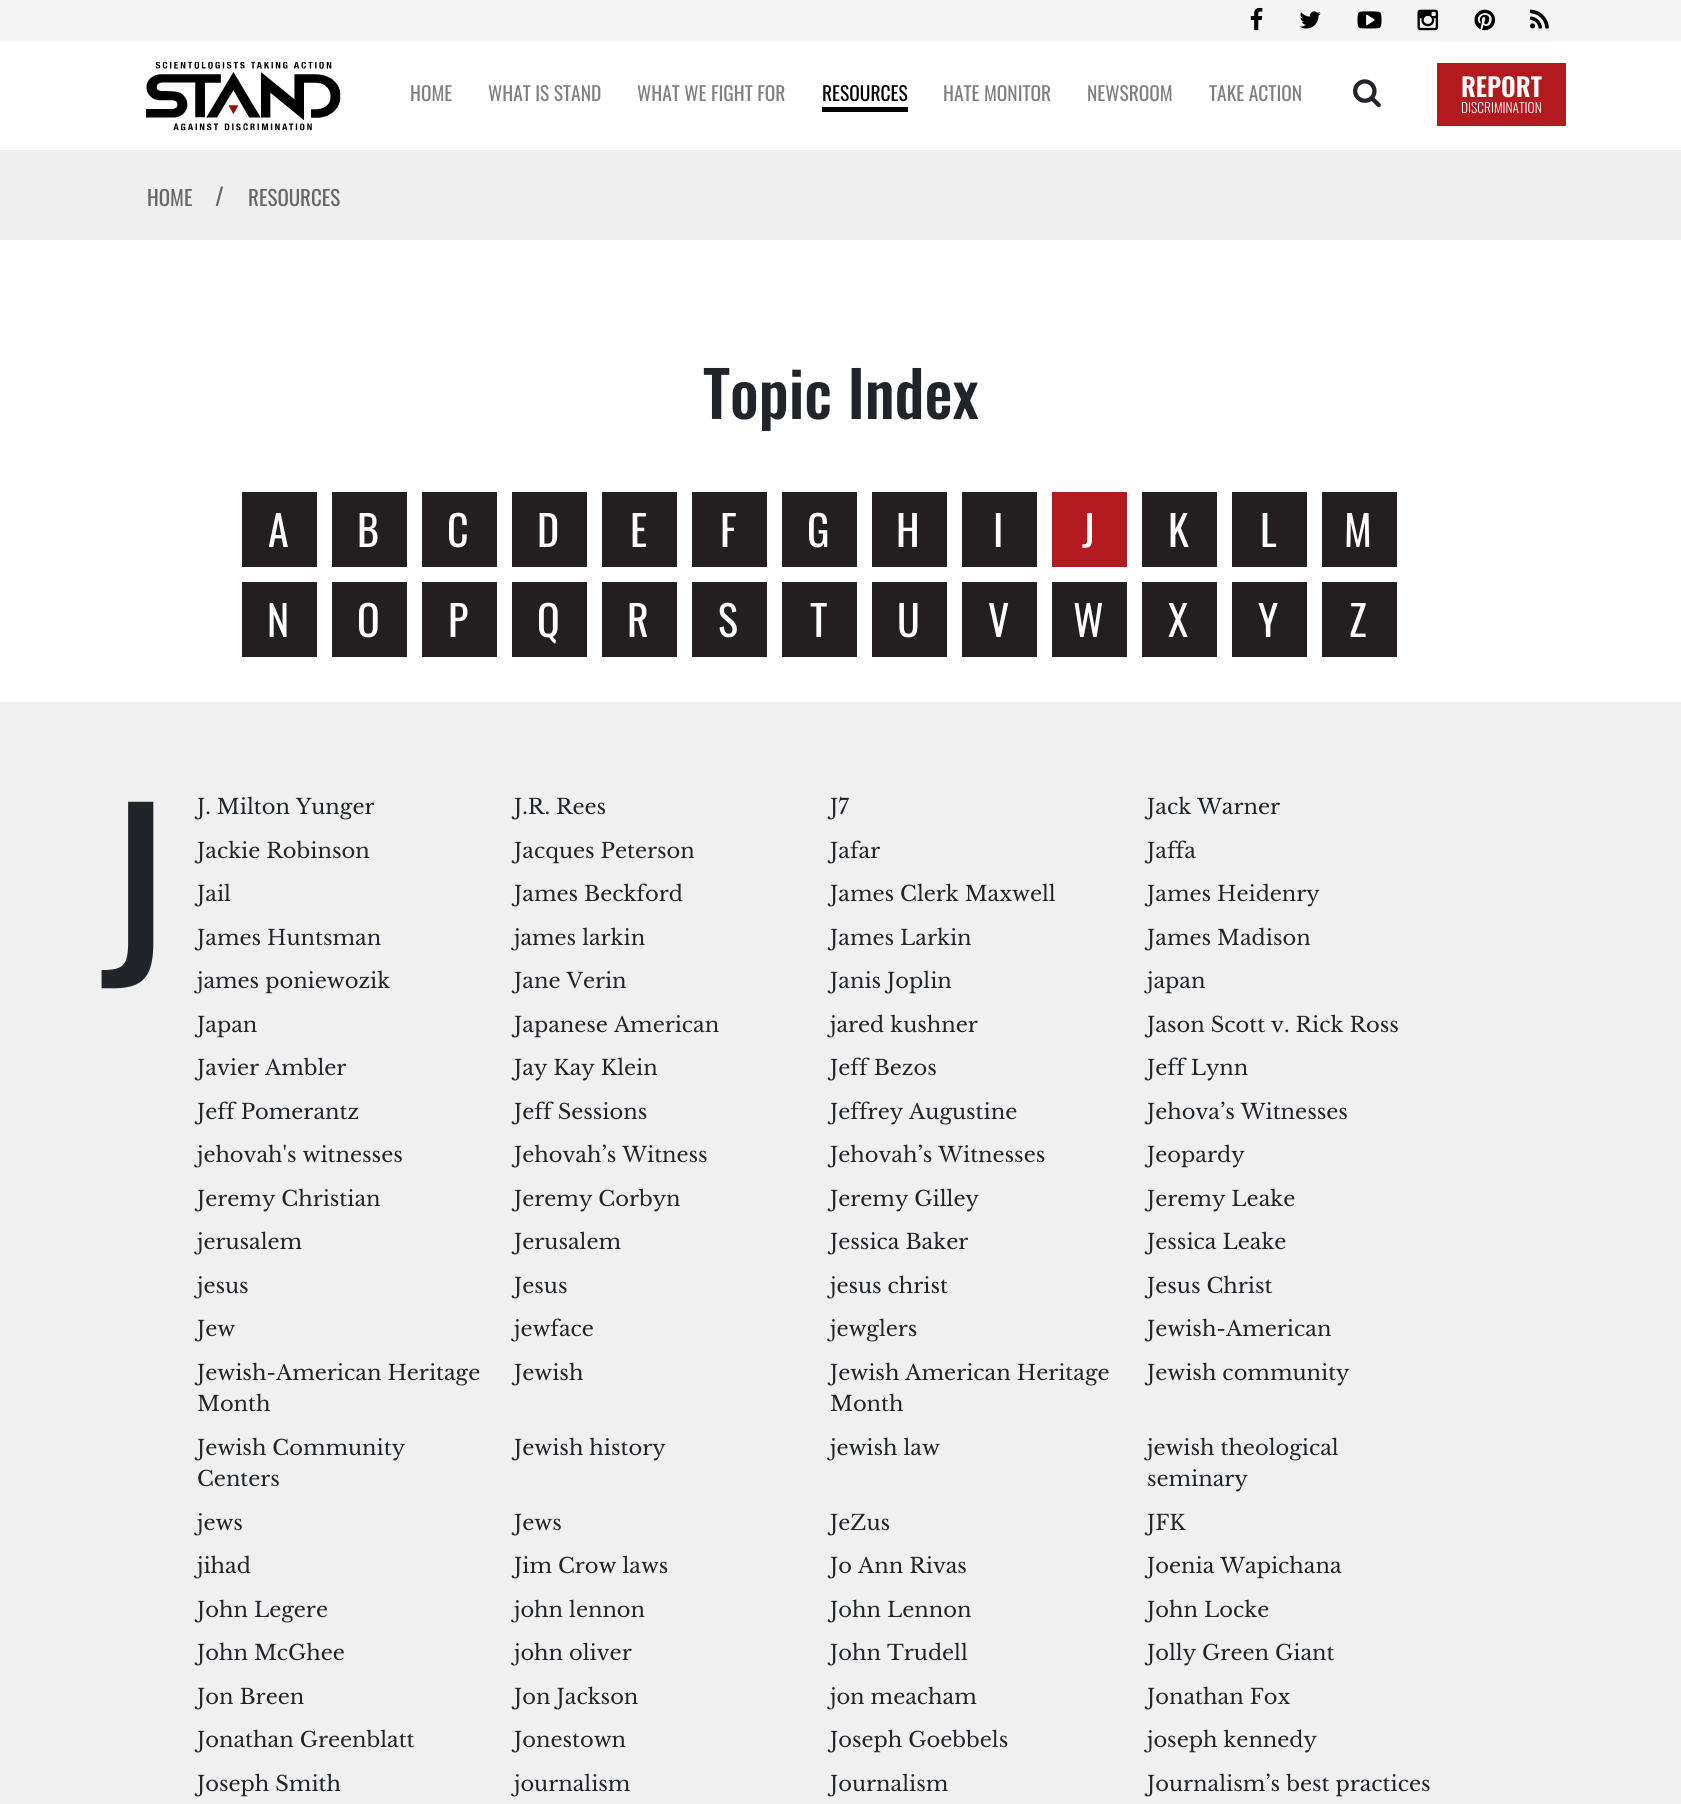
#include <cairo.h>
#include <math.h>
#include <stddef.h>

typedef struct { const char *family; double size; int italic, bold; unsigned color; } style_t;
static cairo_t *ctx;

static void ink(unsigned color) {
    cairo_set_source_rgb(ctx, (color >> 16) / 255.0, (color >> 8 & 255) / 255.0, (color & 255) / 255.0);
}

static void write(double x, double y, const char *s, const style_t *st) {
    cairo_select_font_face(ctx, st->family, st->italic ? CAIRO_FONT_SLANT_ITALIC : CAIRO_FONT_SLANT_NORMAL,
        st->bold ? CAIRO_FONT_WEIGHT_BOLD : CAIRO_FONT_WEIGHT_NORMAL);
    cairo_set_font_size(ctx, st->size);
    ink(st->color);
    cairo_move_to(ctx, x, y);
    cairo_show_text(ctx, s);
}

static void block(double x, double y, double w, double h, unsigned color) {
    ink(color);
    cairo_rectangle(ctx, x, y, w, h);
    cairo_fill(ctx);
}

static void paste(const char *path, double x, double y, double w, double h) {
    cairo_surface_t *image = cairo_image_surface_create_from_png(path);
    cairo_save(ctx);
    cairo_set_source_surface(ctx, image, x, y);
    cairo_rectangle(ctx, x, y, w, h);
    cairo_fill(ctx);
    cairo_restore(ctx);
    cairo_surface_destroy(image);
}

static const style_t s1 = {"Oswald", 19.5, 0, 0, 0x808080};
static const style_t s2 = {"Oswald", 19.5, 0, 0, 0x000000};
static const style_t s3 = {"Oswald SemiBold", 25.5, 0, 0, 0xffffff};
static const style_t s4 = {"Oswald Light", 13.5, 0, 0, 0xffffff};
static const style_t s5 = {"Oswald", 21, 0, 0, 0x666666};
static const style_t s6 = {"Oswald", 24, 0, 0, 0x666666};
static const style_t s7 = {"Oswald Medium", 63, 0, 0, 0x212529};
static const style_t s8 = {"Oswald", 42, 0, 0, 0xffffff};
static const style_t s9 = {"Oswald", 225, 0, 0, 0x212529};
static const style_t s10 = {"Libre Baskerville", 21, 0, 0, 0x212529};

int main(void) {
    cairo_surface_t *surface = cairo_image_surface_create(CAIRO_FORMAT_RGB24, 1681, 1804);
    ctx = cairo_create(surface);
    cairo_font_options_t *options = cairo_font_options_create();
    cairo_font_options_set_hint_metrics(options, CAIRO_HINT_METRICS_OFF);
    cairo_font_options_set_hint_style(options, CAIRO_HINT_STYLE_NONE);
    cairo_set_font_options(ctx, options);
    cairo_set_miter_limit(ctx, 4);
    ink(0xffffff);
    cairo_paint(ctx);
    block(0, 0, 1681, 42, 0xf5f5f5);
    paste("pic1.png", 1250, 7, 13, 24);
    paste("pic2.png", 1299, 11, 22, 18);
    paste("pic3.png", 1357, 11, 25, 18);
    paste("pic4.png", 1417, 9, 22, 22);
    paste("pic5.png", 1474, 9, 22, 22);
    paste("pic6.png", 1530, 9, 19, 20);
    paste("pic7.png", 146, 62, 195, 69);
    write(410, 101, "HOME", &s1);
    write(488, 101, "WHAT IS STAND", &s1);
    write(637, 101, "WHAT WE FIGHT FOR", &s1);
    write(822, 101, "RESOURCES", &s2);
    block(822, 107, 86, 5, 0x000000);
    write(943, 101, "HATE MONITOR", &s1);
    write(1087, 101, "NEWSROOM", &s1);
    write(1209, 101, "TAKE ACTION", &s1);
    paste("pic8.png", 1353, 79, 28, 29);
    block(1437, 63, 129, 63, 0xb31a1f);
    write(1461, 97, "REPORT", &s3);
    write(1461, 113, "DISCRIMINATION", &s4);
    block(0, 150, 1681, 90, 0xefefef);
    write(147, 206, "HOME", &s5);
    write(215, 206, "/", &s6);
    write(248, 206, "RESOURCES", &s5);
    write(703, 419, "Topic Index", &s7);
    block(242, 492, 75, 75, 0x231f20);
    write(268, 547, "A", &s8);
    block(332, 492, 75, 75, 0x231f20);
    write(357, 547, "B", &s8);
    block(422, 492, 75, 75, 0x231f20);
    write(447, 547, "C", &s8);
    block(512, 492, 75, 75, 0x231f20);
    write(537, 547, "D", &s8);
    block(602, 492, 75, 75, 0x231f20);
    write(630, 547, "E", &s8);
    block(692, 492, 75, 75, 0x231f20);
    write(720, 547, "F", &s8);
    block(782, 492, 75, 75, 0x231f20);
    write(807, 547, "G", &s8);
    block(872, 492, 75, 75, 0x231f20);
    write(896, 547, "H", &s8);
    block(962, 492, 75, 75, 0x231f20);
    write(993, 547, "I", &s8);
    block(1052, 492, 75, 75, 0xb31a1f);
    write(1082, 547, "J", &s8);
    block(1142, 492, 75, 75, 0x231f20);
    write(1168, 547, "K", &s8);
    block(1232, 492, 75, 75, 0x231f20);
    write(1260, 547, "L", &s8);
    block(1322, 492, 75, 75, 0x231f20);
    write(1344, 547, "M", &s8);
    block(242, 582, 75, 75, 0x231f20);
    write(267, 637, "N", &s8);
    block(332, 582, 75, 75, 0x231f20);
    write(357, 637, "O", &s8);
    block(422, 582, 75, 75, 0x231f20);
    write(448, 637, "P", &s8);
    block(512, 582, 75, 75, 0x231f20);
    write(537, 637, "Q", &s8);
    block(602, 582, 75, 75, 0x231f20);
    write(627, 637, "R", &s8);
    block(692, 582, 75, 75, 0x231f20);
    write(718, 637, "S", &s8);
    block(782, 582, 75, 75, 0x231f20);
    write(810, 637, "T", &s8);
    block(872, 582, 75, 75, 0x231f20);
    write(897, 637, "U", &s8);
    block(962, 582, 75, 75, 0x231f20);
    write(988, 637, "V", &s8);
    block(1052, 582, 75, 75, 0x231f20);
    write(1073, 637, "W", &s8);
    block(1142, 582, 75, 75, 0x231f20);
    write(1168, 637, "X", &s8);
    block(1232, 582, 75, 75, 0x231f20);
    write(1258, 637, "Y", &s8);
    block(1322, 582, 75, 75, 0x231f20);
    write(1349, 637, "Z", &s8);
    block(0, 702, 1681, 1102, 0xf0f0f0);
    write(100, 984, "J", &s9);
    write(197, 814, "J. Milton Yunger", &s10);
    write(514, 814, "J.R. Rees", &s10);
    write(830, 814, "J7", &s10);
    write(1147, 814, "Jack Warner", &s10);
    write(197, 858, "Jackie Robinson", &s10);
    write(514, 858, "Jacques Peterson", &s10);
    write(830, 858, "Jafar", &s10);
    write(1147, 858, "Jaffa", &s10);
    write(197, 901, "Jail", &s10);
    write(514, 901, "James Beckford", &s10);
    write(830, 901, "James Clerk Maxwell", &s10);
    write(1147, 901, "James Heidenry", &s10);
    write(197, 945, "James Huntsman", &s10);
    write(514, 945, "james larkin", &s10);
    write(830, 945, "James Larkin", &s10);
    write(1147, 945, "James Madison", &s10);
    write(197, 988, "james poniewozik", &s10);
    write(514, 988, "Jane Verin", &s10);
    write(830, 988, "Janis Joplin", &s10);
    write(1147, 988, "japan", &s10);
    write(197, 1032, "Japan", &s10);
    write(514, 1032, "Japanese American", &s10);
    write(830, 1032, "jared kushner", &s10);
    write(1147, 1032, "Jason Scott v. Rick Ross", &s10);
    write(197, 1075, "Javier Ambler", &s10);
    write(514, 1075, "Jay Kay Klein", &s10);
    write(830, 1075, "Jeff Bezos", &s10);
    write(1147, 1075, "Jeff Lynn", &s10);
    write(197, 1119, "Jeff Pomerantz", &s10);
    write(514, 1119, "Jeff Sessions", &s10);
    write(830, 1119, "Jeffrey Augustine", &s10);
    write(1147, 1119, "Jehova’s Witnesses", &s10);
    write(197, 1162, "jehovah's witnesses", &s10);
    write(514, 1162, "Jehovah’s Witness", &s10);
    write(830, 1162, "Jehovah’s Witnesses", &s10);
    write(1147, 1162, "Jeopardy", &s10);
    write(197, 1206, "Jeremy Christian", &s10);
    write(514, 1206, "Jeremy Corbyn", &s10);
    write(830, 1206, "Jeremy Gilley", &s10);
    write(1147, 1206, "Jeremy Leake", &s10);
    write(197, 1249, "jerusalem", &s10);
    write(514, 1249, "Jerusalem", &s10);
    write(830, 1249, "Jessica Baker", &s10);
    write(1147, 1249, "Jessica Leake", &s10);
    write(197, 1293, "jesus", &s10);
    write(514, 1293, "Jesus", &s10);
    write(830, 1293, "jesus christ", &s10);
    write(1147, 1293, "Jesus Christ", &s10);
    write(197, 1336, "Jew", &s10);
    write(514, 1336, "jewface", &s10);
    write(830, 1336, "jewglers", &s10);
    write(1147, 1336, "Jewish-American", &s10);
    write(197, 1380, "Jewish-American Heritage", &s10);
    write(197, 1411, "Month", &s10);
    write(514, 1380, "Jewish", &s10);
    write(830, 1380, "Jewish American Heritage", &s10);
    write(830, 1411, "Month", &s10);
    write(1147, 1380, "Jewish community", &s10);
    write(197, 1455, "Jewish Community", &s10);
    write(197, 1486, "Centers", &s10);
    write(514, 1455, "Jewish history", &s10);
    write(830, 1455, "jewish law", &s10);
    write(1147, 1455, "jewish theological", &s10);
    write(1147, 1486, "seminary", &s10);
    write(197, 1530, "jews", &s10);
    write(514, 1530, "Jews", &s10);
    write(830, 1530, "JeZus", &s10);
    write(1147, 1530, "JFK", &s10);
    write(197, 1573, "jihad", &s10);
    write(514, 1573, "Jim Crow laws", &s10);
    write(830, 1573, "Jo Ann Rivas", &s10);
    write(1147, 1573, "Joenia Wapichana", &s10);
    write(197, 1617, "John Legere", &s10);
    write(514, 1617, "john lennon", &s10);
    write(830, 1617, "John Lennon", &s10);
    write(1147, 1617, "John Locke", &s10);
    write(197, 1660, "John McGhee", &s10);
    write(514, 1660, "john oliver", &s10);
    write(830, 1660, "John Trudell", &s10);
    write(1147, 1660, "Jolly Green Giant", &s10);
    write(197, 1704, "Jon Breen", &s10);
    write(514, 1704, "Jon Jackson", &s10);
    write(830, 1704, "jon meacham", &s10);
    write(1147, 1704, "Jonathan Fox", &s10);
    write(197, 1747, "Jonathan Greenblatt", &s10);
    write(514, 1747, "Jonestown", &s10);
    write(830, 1747, "Joseph Goebbels", &s10);
    write(1147, 1747, "joseph kennedy", &s10);
    write(197, 1791, "Joseph Smith", &s10);
    write(514, 1791, "journalism", &s10);
    write(830, 1791, "Journalism", &s10);
    write(1147, 1791, "Journalism’s best practices", &s10);
    cairo_surface_write_to_png(surface, "screenshot.png");
    cairo_font_options_destroy(options);
    cairo_destroy(ctx);
    cairo_surface_destroy(surface);
    return 0;
}
